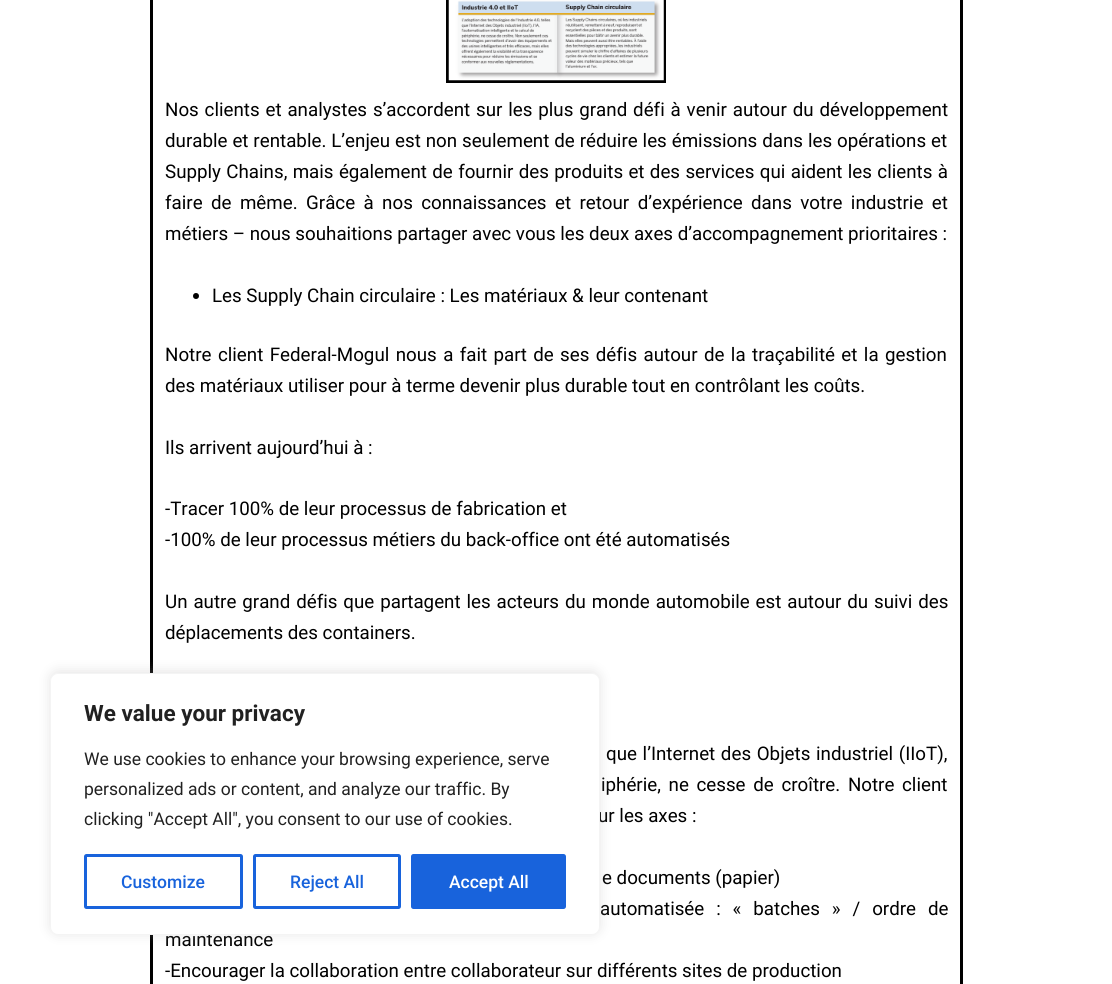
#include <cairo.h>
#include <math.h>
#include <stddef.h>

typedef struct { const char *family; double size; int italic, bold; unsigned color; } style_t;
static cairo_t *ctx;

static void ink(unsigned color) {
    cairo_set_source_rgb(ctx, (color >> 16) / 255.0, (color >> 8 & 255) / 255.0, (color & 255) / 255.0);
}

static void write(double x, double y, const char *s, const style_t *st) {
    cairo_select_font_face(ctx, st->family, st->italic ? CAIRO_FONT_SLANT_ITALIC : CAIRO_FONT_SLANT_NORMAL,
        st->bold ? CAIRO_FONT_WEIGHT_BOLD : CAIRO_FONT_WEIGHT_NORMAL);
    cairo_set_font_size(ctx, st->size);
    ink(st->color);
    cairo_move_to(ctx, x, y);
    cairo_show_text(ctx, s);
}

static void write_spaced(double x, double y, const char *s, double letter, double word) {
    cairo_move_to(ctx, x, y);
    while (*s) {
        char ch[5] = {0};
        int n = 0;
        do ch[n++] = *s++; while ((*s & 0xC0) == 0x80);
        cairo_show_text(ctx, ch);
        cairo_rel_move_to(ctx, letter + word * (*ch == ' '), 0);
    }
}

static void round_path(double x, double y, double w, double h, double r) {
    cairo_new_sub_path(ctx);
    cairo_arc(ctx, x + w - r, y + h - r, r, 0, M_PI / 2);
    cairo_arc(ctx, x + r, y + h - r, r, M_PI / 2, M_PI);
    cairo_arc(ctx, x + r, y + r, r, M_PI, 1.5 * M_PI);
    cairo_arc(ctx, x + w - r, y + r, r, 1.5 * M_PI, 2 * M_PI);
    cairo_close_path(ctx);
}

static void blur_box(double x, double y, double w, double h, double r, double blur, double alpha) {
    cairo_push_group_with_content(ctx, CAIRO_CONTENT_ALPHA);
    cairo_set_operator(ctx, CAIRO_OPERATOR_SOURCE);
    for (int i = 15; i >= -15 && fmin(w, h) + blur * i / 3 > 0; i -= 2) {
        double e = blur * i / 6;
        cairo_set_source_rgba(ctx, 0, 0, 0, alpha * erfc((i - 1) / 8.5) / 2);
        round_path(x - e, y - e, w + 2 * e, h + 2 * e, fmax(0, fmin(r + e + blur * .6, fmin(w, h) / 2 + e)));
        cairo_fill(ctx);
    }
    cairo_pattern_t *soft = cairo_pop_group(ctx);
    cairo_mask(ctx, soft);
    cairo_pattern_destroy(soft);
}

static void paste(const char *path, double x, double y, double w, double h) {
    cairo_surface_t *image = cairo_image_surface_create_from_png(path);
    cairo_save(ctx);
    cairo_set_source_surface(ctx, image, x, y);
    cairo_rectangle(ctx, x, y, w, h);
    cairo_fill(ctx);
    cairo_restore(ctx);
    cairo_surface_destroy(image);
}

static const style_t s1 = {"Roboto", 18.75, 0, 0, 0x000000};
static const style_t s2 = {"Roboto", 22.5, 0, 1, 0x212121};
static const style_t s3 = {"Roboto", 17.5, 0, 0, 0x212121};
static const style_t s4 = {"Roboto Medium", 17.5, 0, 0, 0x1863dc};
static const style_t s5 = {"Roboto Medium", 17.5, 0, 0, 0xffffff};

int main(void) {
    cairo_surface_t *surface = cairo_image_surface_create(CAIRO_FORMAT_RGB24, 1112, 984);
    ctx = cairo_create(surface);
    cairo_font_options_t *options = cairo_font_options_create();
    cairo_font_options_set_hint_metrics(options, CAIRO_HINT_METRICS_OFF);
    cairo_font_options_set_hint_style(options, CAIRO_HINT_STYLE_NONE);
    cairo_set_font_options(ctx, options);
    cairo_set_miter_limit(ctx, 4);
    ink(0xffffff);
    cairo_paint(ctx);
    cairo_rectangle(ctx, 151.5, -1.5, 810, 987);
    ink(0x000000);
    cairo_set_line_width(ctx, 3);
    cairo_stroke(ctx);
    cairo_rectangle(ctx, 447.5, -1.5, 217, 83);
    cairo_stroke(ctx);
    paste("pic1.png", 448, 0, 216, 81);
    cairo_select_font_face(ctx, "Roboto", CAIRO_FONT_SLANT_NORMAL, CAIRO_FONT_WEIGHT_NORMAL);
    cairo_set_font_size(ctx, 18.75);
    write_spaced(165, 116, "Nos clients et analystes s’accordent sur les plus grand défi à venir autour du développement", 0, 1.2);
    write_spaced(165, 147, "durable et rentable. L’enjeu est non seulement de réduire les émissions dans les opérations et", 0, 0.25);
    write_spaced(165, 178, "Supply Chains, mais également de fournir des produits et des services qui aident les clients à", 0, 0.7);
    write_spaced(165, 209, "faire de même. Grâce à nos connaissances et retour d’expérience dans votre industrie et", 0, 3.75);
    write(165, 240, "métiers – nous souhaitions partager avec vous les deux axes d’accompagnement prioritaires :", &s1);
    cairo_new_path(ctx);
    cairo_arc(ctx, 196, 296, 3, 0, 2 * M_PI);
    cairo_fill(ctx);
    write(212, 302, "Les Supply Chain circulaire : Les matériaux & leur contenant", &s1);
    write_spaced(165, 361, "Notre client Federal-Mogul nous a fait part de ses défis autour de la traçabilité et la gestion", 0, 1.75);
    write(165, 392, "des matériaux utiliser pour à terme devenir plus durable tout en contrôlant les coûts.", &s1);
    write(165, 454, "Ils arrivent aujourd’hui à :", &s1);
    write(165, 515, "-Tracer 100% de leur processus de fabrication et", &s1);
    write(165, 546, "-100% de leur processus métiers du back-office ont été automatisés", &s1);
    write_spaced(165, 608, "Un autre grand défis que partagent les acteurs du monde automobile est autour du suivi des", 0, 1.25);
    write(165, 639, "déplacements des containers.", &s1);
    write_spaced(606, 760, "que l’Internet des Objets industriel (IIoT),", 0, 1);
    write_spaced(601, 791, "iphérie, ne cesse de croître. Notre client", 0, 3);
    write(598, 822, "ur les axes :", &s1);
    write(602, 884, "e documents (papier)", &s1);
    write_spaced(600, 915, "automatisée : « batches » / ordre de", 0, 7.25);
    write(165, 946, "maintenance", &s1);
    write(165, 977, "-Encourager la collaboration entre collaborateur sur différents sites de production", &s1);
    ink(0xacabab);
    blur_box(50, 671, 550, 263, 8, 6, 0.3);
    ink(0xffffff);
    round_path(50.5, 673.5, 549, 261, 7.5);
    cairo_fill_preserve(ctx);
    ink(0xf4f4f4);
    cairo_set_line_width(ctx, 1);
    cairo_stroke(ctx);
    write(84, 721, "We value your privacy", &s2);
    write(84, 765, "We use cookies to enhance your browsing experience, serve", &s3);
    write(84, 795, "personalized ads or content, and analyze our traffic. By", &s3);
    write(84, 825, "clicking \"Accept All\", you consent to our use of cookies.", &s3);
    round_path(85.5, 855.5, 156, 52, 1);
    ink(0x1863dc);
    cairo_set_line_width(ctx, 3);
    cairo_stroke(ctx);
    write(121, 888, "Customize", &s4);
    round_path(254.5, 855.5, 145, 52, 1);
    cairo_stroke(ctx);
    write(290, 888, "Reject All", &s4);
    round_path(412.5, 855.5, 152, 52, 1);
    cairo_fill_preserve(ctx);
    cairo_stroke(ctx);
    write(449, 888, "Accept All", &s5);
    cairo_surface_write_to_png(surface, "screenshot.png");
    cairo_font_options_destroy(options);
    cairo_destroy(ctx);
    cairo_surface_destroy(surface);
    return 0;
}
